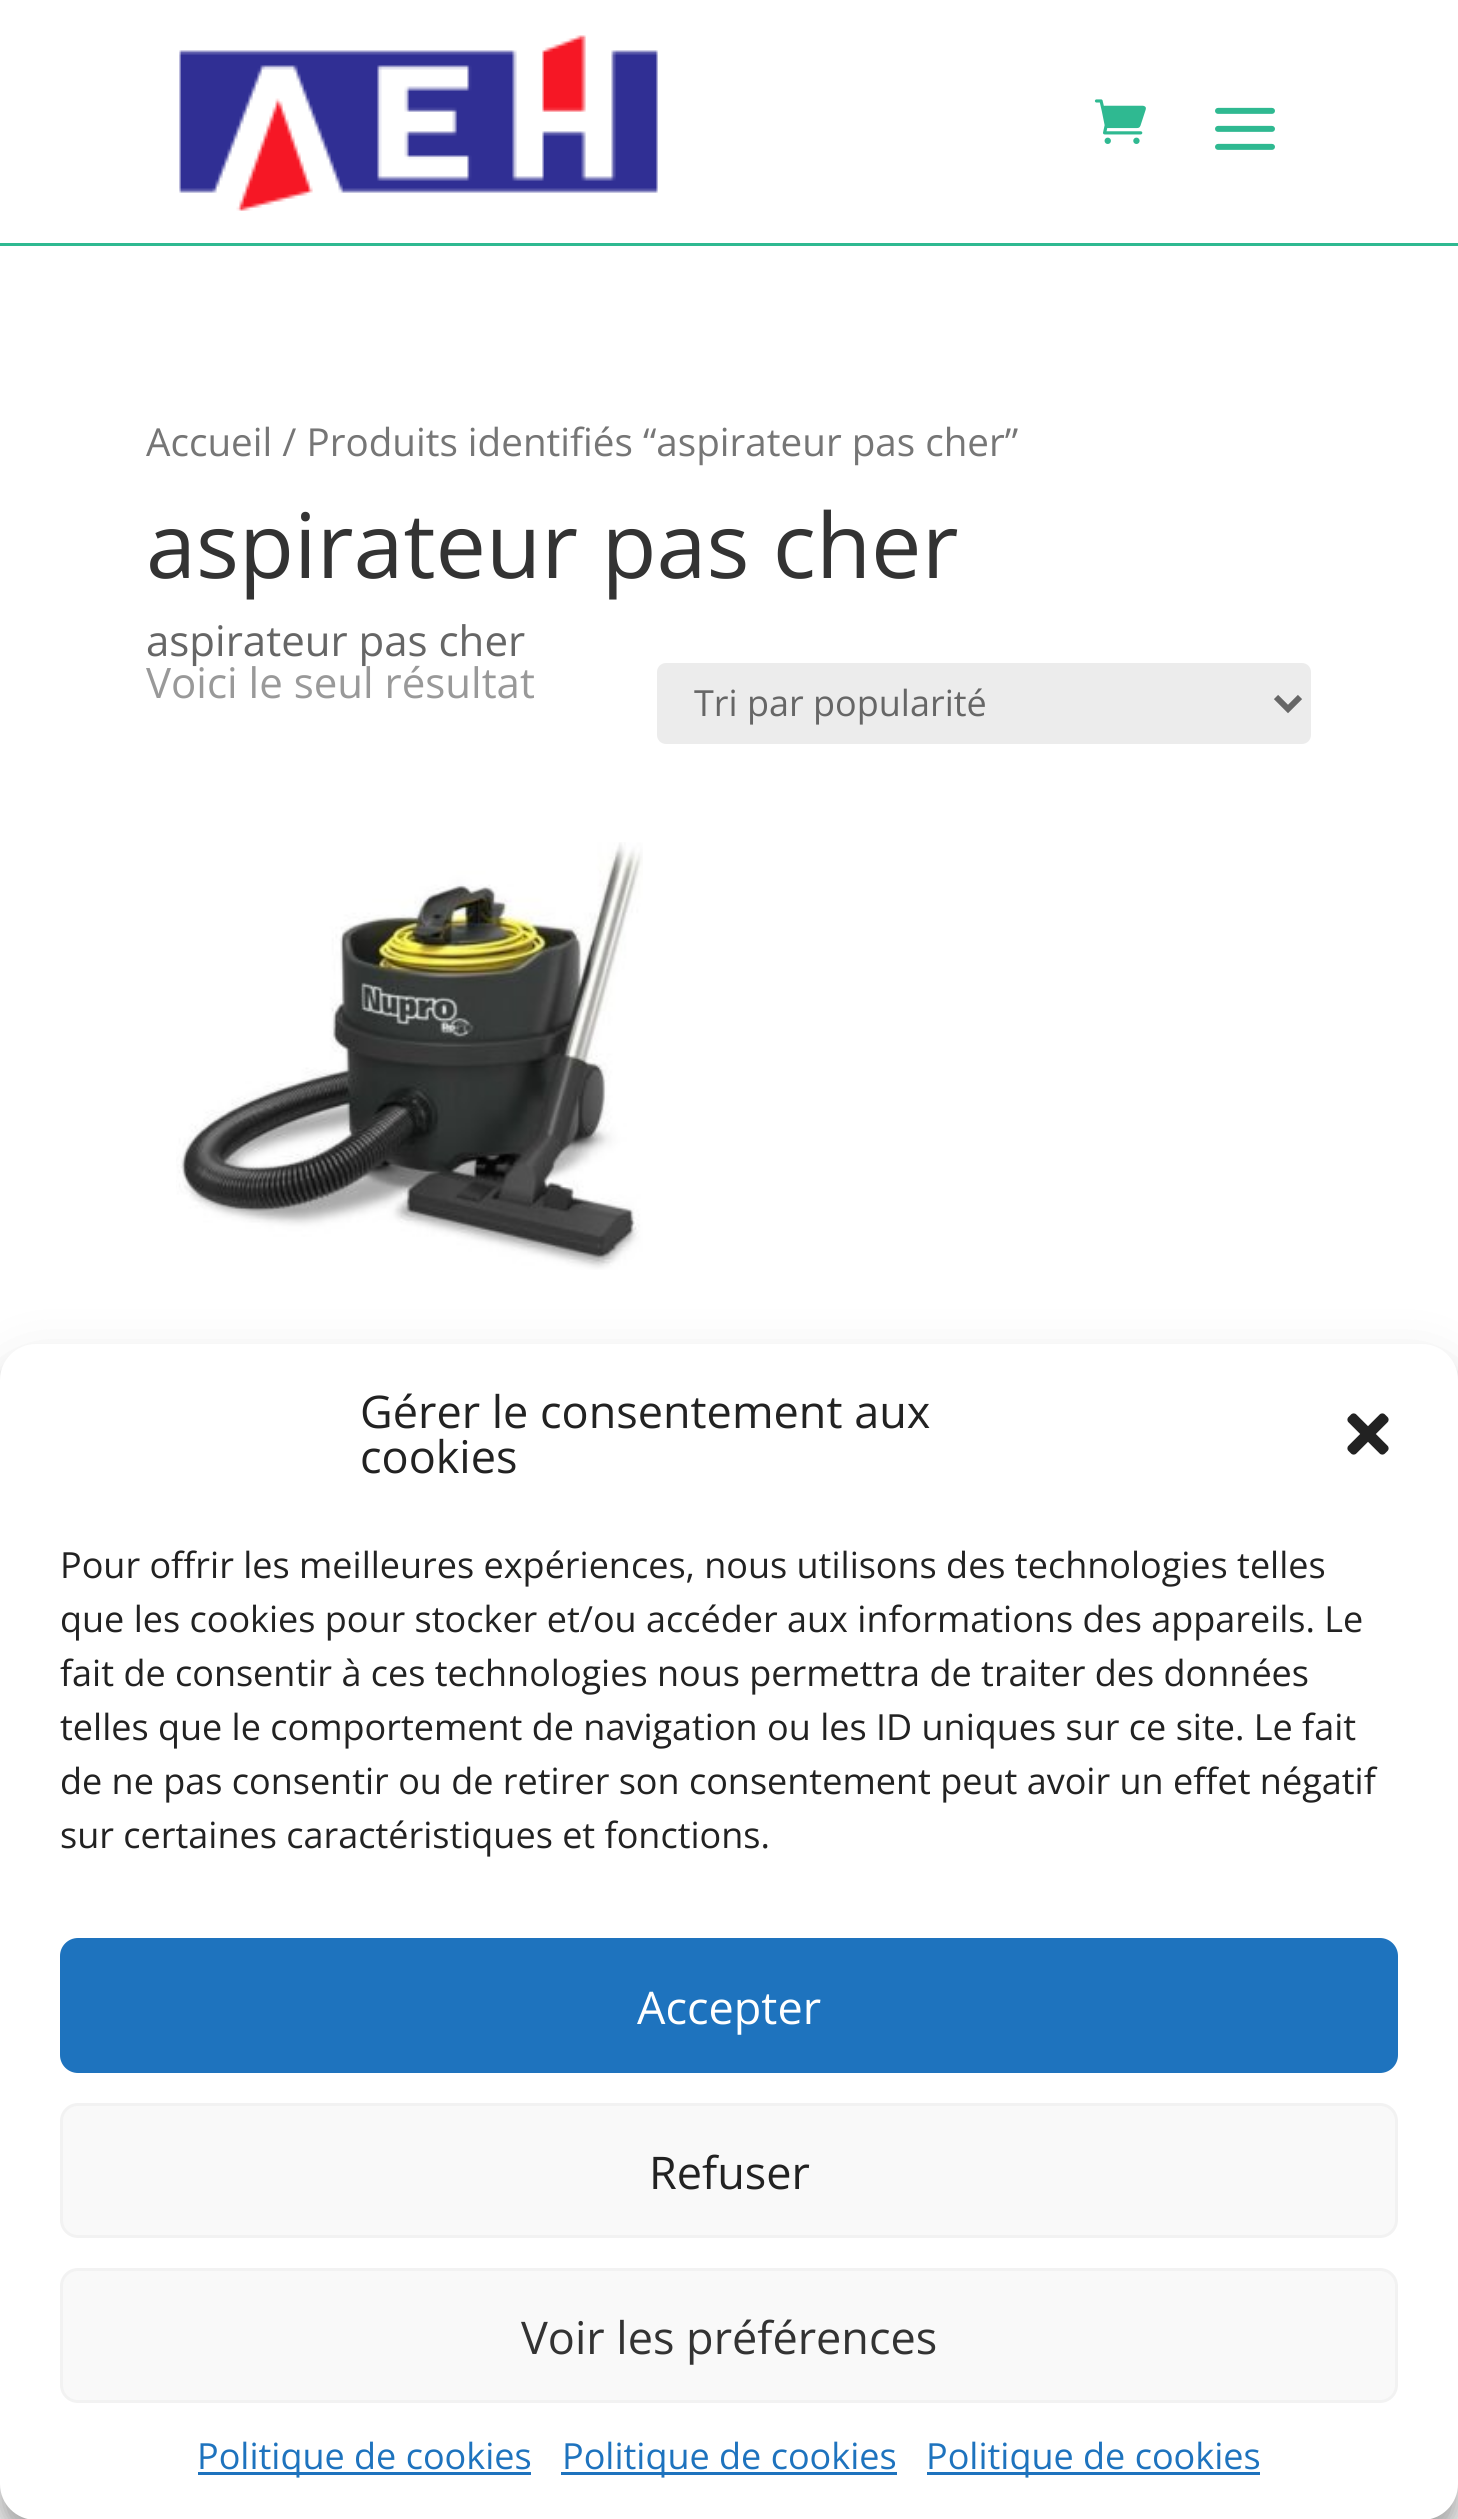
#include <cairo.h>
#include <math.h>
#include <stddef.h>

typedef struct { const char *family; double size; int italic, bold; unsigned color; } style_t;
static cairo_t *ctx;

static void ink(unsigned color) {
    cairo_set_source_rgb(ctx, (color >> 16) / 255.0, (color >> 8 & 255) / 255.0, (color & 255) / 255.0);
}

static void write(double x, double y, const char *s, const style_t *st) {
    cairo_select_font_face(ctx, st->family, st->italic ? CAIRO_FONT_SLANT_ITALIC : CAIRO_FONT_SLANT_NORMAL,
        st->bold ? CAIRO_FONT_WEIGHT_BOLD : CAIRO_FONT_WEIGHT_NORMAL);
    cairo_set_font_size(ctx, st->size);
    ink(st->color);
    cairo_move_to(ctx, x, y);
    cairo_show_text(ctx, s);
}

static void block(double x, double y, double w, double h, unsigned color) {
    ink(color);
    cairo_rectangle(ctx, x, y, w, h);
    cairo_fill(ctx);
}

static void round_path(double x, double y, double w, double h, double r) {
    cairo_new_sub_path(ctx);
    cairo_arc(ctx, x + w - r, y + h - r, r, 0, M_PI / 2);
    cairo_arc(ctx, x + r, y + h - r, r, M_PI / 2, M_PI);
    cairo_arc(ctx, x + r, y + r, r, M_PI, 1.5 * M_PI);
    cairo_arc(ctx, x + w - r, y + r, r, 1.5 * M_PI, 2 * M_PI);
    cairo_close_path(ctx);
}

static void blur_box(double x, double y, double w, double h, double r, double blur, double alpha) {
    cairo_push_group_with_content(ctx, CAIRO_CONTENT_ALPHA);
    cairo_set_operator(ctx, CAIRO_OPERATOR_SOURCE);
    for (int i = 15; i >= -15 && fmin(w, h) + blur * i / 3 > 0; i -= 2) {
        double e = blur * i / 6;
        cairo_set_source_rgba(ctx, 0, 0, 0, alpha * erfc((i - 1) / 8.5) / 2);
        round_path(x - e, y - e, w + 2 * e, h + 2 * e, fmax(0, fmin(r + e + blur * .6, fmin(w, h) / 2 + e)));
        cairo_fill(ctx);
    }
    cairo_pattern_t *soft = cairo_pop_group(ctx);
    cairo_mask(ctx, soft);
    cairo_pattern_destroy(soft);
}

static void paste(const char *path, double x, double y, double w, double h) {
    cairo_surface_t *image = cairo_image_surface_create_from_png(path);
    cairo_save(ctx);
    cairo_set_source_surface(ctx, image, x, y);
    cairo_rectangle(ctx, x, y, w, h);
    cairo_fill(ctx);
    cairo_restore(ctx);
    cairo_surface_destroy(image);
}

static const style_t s1 = {"Open Sans", 38.6, 0, 0, 0x767676};
static const style_t s2 = {"Open Sans", 90, 0, 0, 0x333333};
static const style_t s3 = {"Open Sans", 42, 0, 0, 0x666666};
static const style_t s4 = {"Open Sans", 42, 0, 0, 0x999999};
static const style_t s5 = {"Open Sans", 36, 0, 0, 0x666666};
static const style_t s6 = {"Open Sans", 45, 0, 0, 0x222222};
static const style_t s7 = {"Open Sans", 36, 0, 0, 0x222222};
static const style_t s8 = {"Open Sans", 45, 0, 0, 0xffffff};
static const style_t s9 = {"Open Sans", 45, 0, 0, 0x333333};
static const style_t s10 = {"Open Sans", 36, 0, 0, 0x1e73be};

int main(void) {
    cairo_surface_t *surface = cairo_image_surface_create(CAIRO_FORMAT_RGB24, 1458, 2519);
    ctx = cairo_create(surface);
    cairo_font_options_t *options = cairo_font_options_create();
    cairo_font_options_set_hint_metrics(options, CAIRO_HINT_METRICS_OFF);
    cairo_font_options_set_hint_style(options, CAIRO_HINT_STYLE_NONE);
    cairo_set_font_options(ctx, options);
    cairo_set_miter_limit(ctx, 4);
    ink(0xffffff);
    cairo_paint(ctx);
    block(0, 243, 1458, 3, 0x2fb991);
    paste("pic1.png", 179, 35, 479, 176);
    paste("pic2.png", 1094, 99, 52, 45);
    paste("pic3.png", 1215, 107, 60, 43);
    write(146, 456, "Accueil / Produits identifiés “aspirateur pas cher”", &s1);
    write(146, 578, "aspirateur pas cher", &s2);
    write(146, 656, "aspirateur pas cher", &s3);
    write(146, 698, "Voici le seul résultat", &s4);
    ink(0xececec);
    round_path(657, 663, 654, 81, 9);
    cairo_fill(ctx);
    cairo_new_path(ctx);
    cairo_move_to(ctx, 1276, 697);
    cairo_line_to(ctx, 1288, 709);
    cairo_line_to(ctx, 1300, 697);
    ink(0x666666);
    cairo_set_line_width(ctx, 6);
    cairo_stroke(ctx);
    write(694, 716, "Tri par popularité", &s5);
    paste("pic4.png", 176, 842, 467, 428);
    ink(0x000000);
    blur_box(0, 1362, 1458, 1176, 36, 9, 0.23);
    blur_box(0, 1374, 1458, 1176, 36, 30, 0.19);
    ink(0xffffff);
    round_path(0, 1344, 1458, 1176, 36);
    cairo_fill(ctx);
    write(360, 1428, "Gérer le consentement aux", &s6);
    write(360, 1473, "cookies", &s6);
    paste("pic5.png", 1347, 1413, 42, 42);
    write(60, 1578, "Pour offrir les meilleures expériences, nous utilisons des technologies telles", &s7);
    write(60, 1632, "que les cookies pour stocker et/ou accéder aux informations des appareils. Le", &s7);
    write(60, 1686, "fait de consentir à ces technologies nous permettra de traiter des données", &s7);
    write(60, 1740, "telles que le comportement de navigation ou les ID uniques sur ce site. Le fait", &s7);
    write(60, 1794, "de ne pas consentir ou de retirer son consentement peut avoir un effet négatif", &s7);
    write(60, 1848, "sur certaines caractéristiques et fonctions.", &s7);
    ink(0x1e73be);
    round_path(61.5, 1939.5, 1335, 132, 16.5);
    cairo_fill_preserve(ctx);
    cairo_set_line_width(ctx, 3);
    cairo_stroke(ctx);
    write(637, 2024, "Accepter", &s8);
    ink(0xf9f9f9);
    round_path(61.5, 2104.5, 1335, 132, 16.5);
    cairo_fill_preserve(ctx);
    ink(0xf2f2f2);
    cairo_stroke(ctx);
    write(649, 2189, "Refuser", &s6);
    ink(0xf9f9f9);
    round_path(61.5, 2269.5, 1335, 132, 16.5);
    cairo_fill_preserve(ctx);
    ink(0xf2f2f2);
    cairo_stroke(ctx);
    write(521, 2354, "Voir les préférences", &s9);
    block(198, 2472, 333, 3, 0x1e73be);
    write(197, 2469, "Politique de cookies", &s10);
    block(561, 2472, 336, 3, 0x1e73be);
    write(562, 2469, "Politique de cookies", &s10);
    block(927, 2472, 333, 3, 0x1e73be);
    write(926, 2469, "Politique de cookies", &s10);
    cairo_surface_write_to_png(surface, "screenshot.png");
    cairo_font_options_destroy(options);
    cairo_destroy(ctx);
    cairo_surface_destroy(surface);
    return 0;
}
